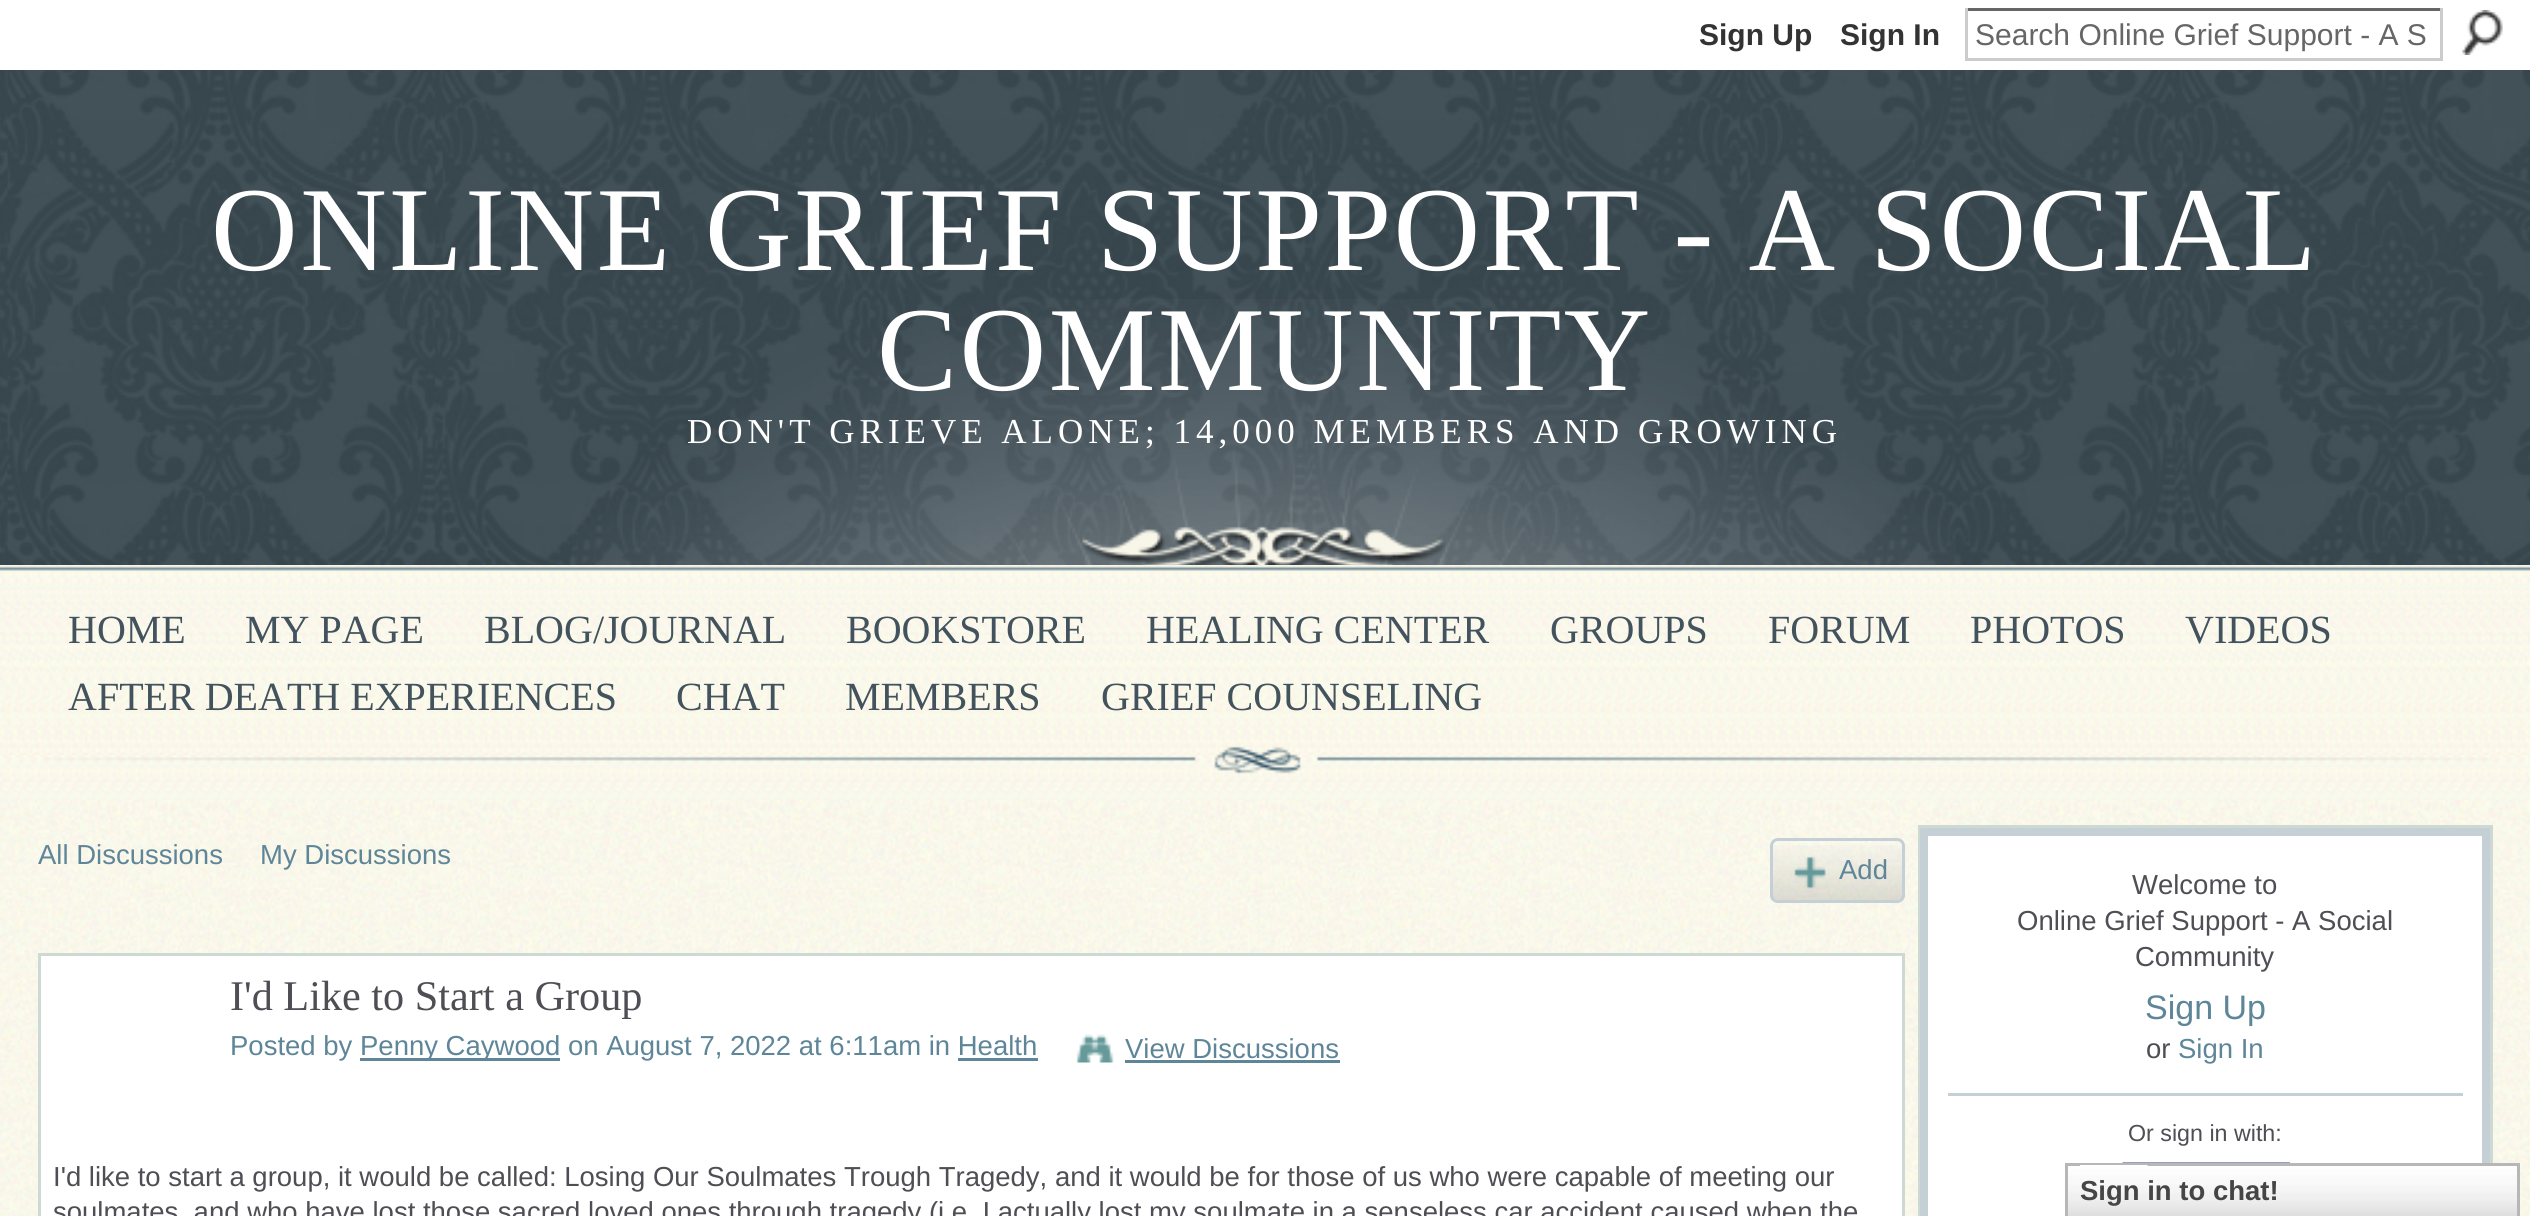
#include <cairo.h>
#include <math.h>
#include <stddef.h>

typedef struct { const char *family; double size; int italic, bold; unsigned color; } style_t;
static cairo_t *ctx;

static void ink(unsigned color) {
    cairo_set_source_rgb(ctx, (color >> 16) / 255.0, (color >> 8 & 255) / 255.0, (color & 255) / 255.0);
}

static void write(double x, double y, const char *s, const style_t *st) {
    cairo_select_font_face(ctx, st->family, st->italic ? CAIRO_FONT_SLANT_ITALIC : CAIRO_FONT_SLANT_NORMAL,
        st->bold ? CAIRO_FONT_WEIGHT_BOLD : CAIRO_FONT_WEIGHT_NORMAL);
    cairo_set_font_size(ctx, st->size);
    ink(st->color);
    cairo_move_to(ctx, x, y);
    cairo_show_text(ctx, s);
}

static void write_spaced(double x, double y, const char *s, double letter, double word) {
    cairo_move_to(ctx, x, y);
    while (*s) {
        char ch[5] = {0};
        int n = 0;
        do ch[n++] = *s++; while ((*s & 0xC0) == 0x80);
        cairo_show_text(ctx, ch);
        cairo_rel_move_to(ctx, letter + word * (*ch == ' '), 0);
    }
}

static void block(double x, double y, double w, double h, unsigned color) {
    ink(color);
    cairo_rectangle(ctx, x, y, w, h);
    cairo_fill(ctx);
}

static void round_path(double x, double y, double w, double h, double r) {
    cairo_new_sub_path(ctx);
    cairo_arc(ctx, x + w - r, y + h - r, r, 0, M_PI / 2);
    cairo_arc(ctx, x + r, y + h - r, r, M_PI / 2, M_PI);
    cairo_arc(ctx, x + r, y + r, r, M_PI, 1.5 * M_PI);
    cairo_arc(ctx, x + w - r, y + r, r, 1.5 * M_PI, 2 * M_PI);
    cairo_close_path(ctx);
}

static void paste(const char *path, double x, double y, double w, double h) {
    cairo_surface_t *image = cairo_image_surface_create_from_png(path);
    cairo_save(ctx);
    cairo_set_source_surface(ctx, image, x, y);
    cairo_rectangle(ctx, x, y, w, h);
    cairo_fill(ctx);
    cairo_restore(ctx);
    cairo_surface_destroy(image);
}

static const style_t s1 = {"Liberation Sans", 30, 0, 1, 0x333333};
static const style_t s2 = {"Liberation Sans", 30, 0, 0, 0x666666};
static const style_t s3 = {"Liberation Serif", 40, 0, 0, 0x42535d};
static const style_t s4 = {"Liberation Sans", 27.5, 0, 0, 0x5e8698};
static const style_t s5 = {"Liberation Serif", 42.25, 0, 0, 0x4e4e54};
static const style_t s6 = {"Liberation Sans", 27.5, 0, 0, 0x4e4e54};
static const style_t s7 = {"Liberation Sans", 34, 0, 0, 0x5e8698};
static const style_t s8 = {"Liberation Sans", 23.25, 0, 0, 0x4e4e54};
static const style_t s9 = {"Liberation Sans", 27.5, 0, 1, 0x454545};

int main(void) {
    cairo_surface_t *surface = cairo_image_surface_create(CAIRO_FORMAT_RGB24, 2530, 1216);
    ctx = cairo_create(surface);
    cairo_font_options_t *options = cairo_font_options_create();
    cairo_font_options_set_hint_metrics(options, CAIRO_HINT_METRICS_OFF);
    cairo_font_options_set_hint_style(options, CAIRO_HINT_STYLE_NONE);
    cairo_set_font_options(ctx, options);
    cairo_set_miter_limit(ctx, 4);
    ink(0x42525c);
    cairo_paint(ctx);
    paste("pic1.png", 0, 70, 2530, 495);
    block(0, 0, 2530, 70, 0xffffff);
    write(1699, 45, "Sign Up", &s1);
    write(1840, 45, "Sign In", &s1);
    block(1965, 8, 478, 3, 0x666666);
    block(2440, 8, 3, 52, 0xcccccc);
    block(1965, 58, 478, 3, 0xcccccc);
    block(1965, 8, 3, 52, 0xcccccc);
    write(1975, 45, "Search Online Grief Support - A S", &s2);
    paste("pic2.png", 2462, 10, 41, 45);
    paste("pic3.png", 571, 299, 1385, 266);
    paste("pic4.png", 1082, 525, 364, 40);
    cairo_select_font_face(ctx, "Liberation Serif", CAIRO_FONT_SLANT_NORMAL, CAIRO_FONT_WEIGHT_NORMAL);
    cairo_set_font_size(ctx, 120);
    ink(0xffffff);
    write_spaced(211, 270, "ONLINE GRIEF SUPPORT - A SOCIAL", 2.5, 0);
    write_spaced(877, 390, "COMMUNITY", 2.5, 0);
    cairo_set_font_size(ctx, 35);
    write_spaced(687, 443, "DON'T GRIEVE ALONE; 14,000 MEMBERS AND GROWING", 5, 0);
    paste("pic5.png", 0, 565, 2530, 235);
    paste("pic6.png", 44, 746, 2448, 28);
    write(68, 643, "HOME", &s3);
    write(245, 643, "MY PAGE", &s3);
    write(484, 643, "BLOG/JOURNAL", &s3);
    write(846, 643, "BOOKSTORE", &s3);
    write(1146, 643, "HEALING CENTER", &s3);
    write(1550, 643, "GROUPS", &s3);
    write(1768, 643, "FORUM", &s3);
    write(1970, 643, "PHOTOS", &s3);
    write(2185, 643, "VIDEOS", &s3);
    write(68, 710, "AFTER DEATH EXPERIENCES", &s3);
    write(676, 710, "CHAT", &s3);
    write(845, 710, "MEMBERS", &s3);
    write(1101, 710, "GRIEF COUNSELING", &s3);
    paste("pic7.png", 0, 800, 2530, 416);
    write(38, 864, "All Discussions", &s4);
    write(260, 864, "My Discussions", &s4);
    paste("pic8.png", 1770, 845, 135, 58);
    round_path(1771.5, 839.5, 132, 62, 6.5);
    ink(0xc4d0d5);
    cairo_set_line_width(ctx, 3);
    cairo_stroke(ctx);
    paste("pic9.png", 1794, 856, 32, 33);
    write(1839, 879, "Add", &s4);
    ink(0xffffff);
    cairo_rectangle(ctx, 39.5, 954.5, 1864, 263);
    cairo_fill_preserve(ctx);
    ink(0xcdd9d3);
    cairo_stroke(ctx);
    write(230, 1010, "I'd Like to Start a Group", &s5);
    write(230, 1055, "Posted by", &s4);
    block(360, 1058, 200, 3, 0x5e8698);
    write(360, 1055, "Penny Caywood on August 7, 2022 at 6:11am in Health", &s4);
    block(958, 1058, 80, 3, 0x5e8698);
    paste("pic10.png", 1076, 1034, 38, 29);
    write(1125, 1058, "View Discussions", &s4);
    block(1125, 1060, 215, 3, 0x5e8698);
    write(53, 1186, "I'd like to start a group, it would be called: Losing Our Soulmates Trough Tragedy, and it would be for those of us who were capable of meeting our", &s6);
    write(53, 1221, "soulmates, and who have lost those sacred loved ones through tragedy (i.e. I actually lost my soulmate in a senseless car accident caused when the", &s6);
    block(1928, 836, 554, 380, 0xffffff);
    cairo_rectangle(ctx, 1919.5, 826.5, 572, 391);
    ink(0xcdd9d3);
    cairo_stroke(ctx);
    cairo_rectangle(ctx, 1924, 832, 562, 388);
    ink(0xc4d0d5);
    cairo_set_line_width(ctx, 8);
    cairo_stroke(ctx);
    write(2132, 894, "Welcome to", &s6);
    write(2017, 930, "Online Grief Support - A Social", &s6);
    write(2135, 966, "Community", &s6);
    write(2145, 1019, "Sign Up", &s7);
    write(2146, 1058, "or", &s6);
    write(2178, 1058, "Sign In", &s4);
    block(1948, 1093, 515, 3, 0xc4d0d5);
    write(2128, 1141, "Or sign in with:", &s8);
    paste("pic11.png", 2122, 1162, 168, 1);
    paste("pic12.png", 2068, 1166, 449, 50);
    cairo_rectangle(ctx, 2066.5, 1164.5, 452, 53);
    ink(0xb7b7b7);
    cairo_set_line_width(ctx, 3);
    cairo_stroke(ctx);
    paste("pic13.png", 2080, 1165, 68, 1);
    write(2080, 1200, "Sign in to chat!", &s9);
    cairo_surface_write_to_png(surface, "screenshot.png");
    cairo_font_options_destroy(options);
    cairo_destroy(ctx);
    cairo_surface_destroy(surface);
    return 0;
}
